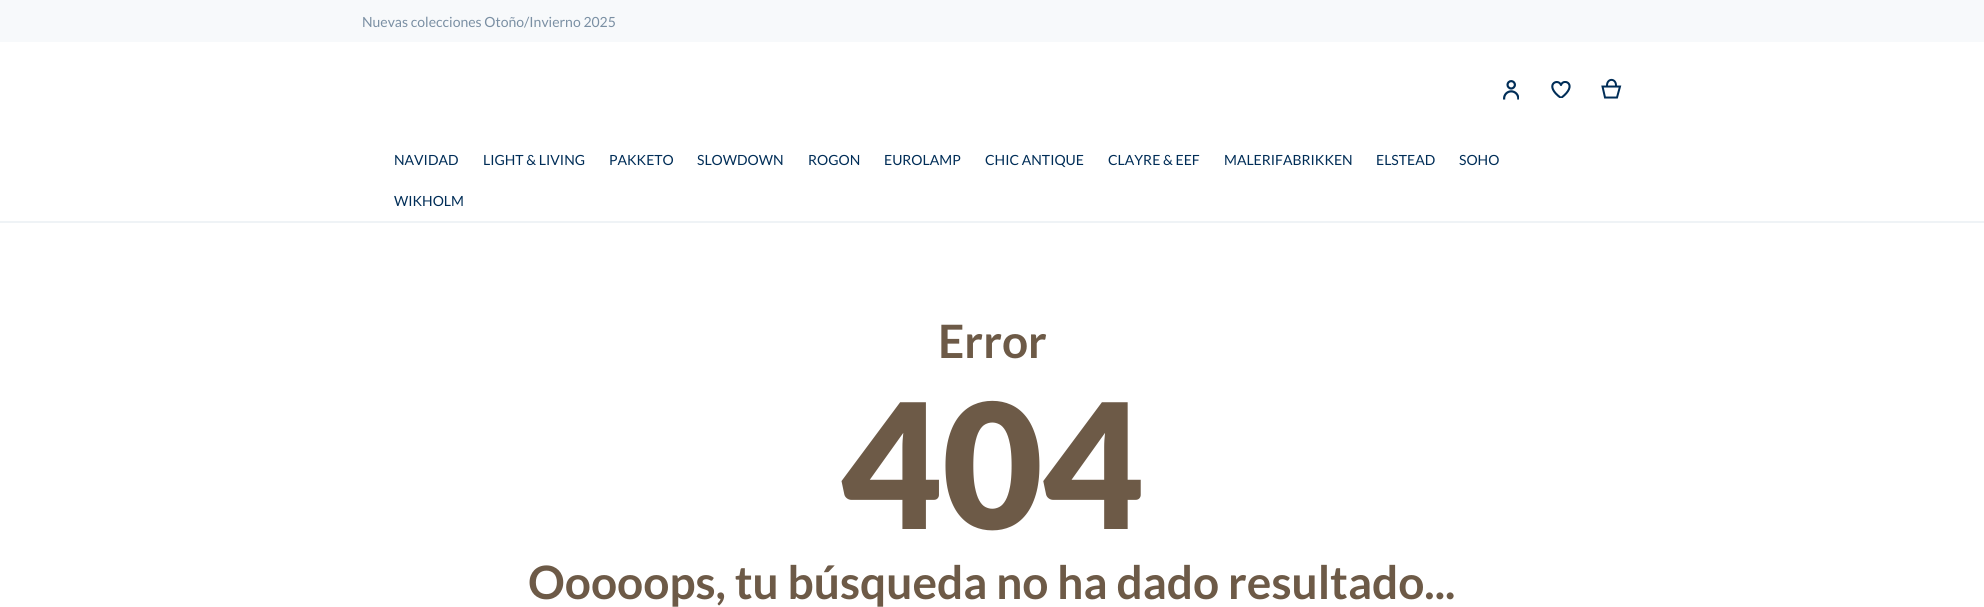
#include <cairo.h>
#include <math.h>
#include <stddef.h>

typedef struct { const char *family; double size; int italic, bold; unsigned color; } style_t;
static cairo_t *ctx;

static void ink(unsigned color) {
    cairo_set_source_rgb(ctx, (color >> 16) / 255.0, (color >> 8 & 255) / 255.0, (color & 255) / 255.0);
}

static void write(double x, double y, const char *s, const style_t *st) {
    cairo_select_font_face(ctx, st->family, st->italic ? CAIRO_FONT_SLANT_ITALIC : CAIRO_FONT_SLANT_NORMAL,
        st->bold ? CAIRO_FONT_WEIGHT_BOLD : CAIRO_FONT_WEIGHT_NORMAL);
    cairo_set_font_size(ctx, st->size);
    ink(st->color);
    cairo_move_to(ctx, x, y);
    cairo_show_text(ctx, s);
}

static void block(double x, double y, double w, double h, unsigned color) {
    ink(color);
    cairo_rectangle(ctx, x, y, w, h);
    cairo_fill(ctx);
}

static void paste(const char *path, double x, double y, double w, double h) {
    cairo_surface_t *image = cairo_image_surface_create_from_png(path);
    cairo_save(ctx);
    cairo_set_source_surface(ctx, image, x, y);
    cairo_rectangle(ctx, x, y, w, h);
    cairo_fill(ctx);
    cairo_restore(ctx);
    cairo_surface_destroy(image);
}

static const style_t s1 = {"Lato", 14, 0, 0, 0x7a8fa3};
static const style_t s2 = {"Lato", 14, 0, 0, 0x002d57};
static const style_t s3 = {"Lato", 46, 0, 1, 0x6d5a47};
static const style_t s4 = {"Lato Black", 174, 0, 0, 0x6d5a47};

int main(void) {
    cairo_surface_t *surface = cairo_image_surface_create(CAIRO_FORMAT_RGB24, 1984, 607);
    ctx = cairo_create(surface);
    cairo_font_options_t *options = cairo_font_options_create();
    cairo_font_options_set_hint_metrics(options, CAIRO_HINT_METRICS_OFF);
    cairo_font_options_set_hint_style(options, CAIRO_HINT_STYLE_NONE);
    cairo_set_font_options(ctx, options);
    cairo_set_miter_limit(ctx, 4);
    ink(0xffffff);
    cairo_paint(ctx);
    block(0, 221, 1984, 2, 0xeff3f6);
    block(0, 0, 1984, 42, 0xf7f9fb);
    write(362, 27, "Nuevas colecciones Otoño/Invierno 2025", &s1);
    paste("pic1.png", 1503, 80, 16, 20);
    cairo_save(ctx);
    cairo_rectangle(ctx, 1551, 81, 20, 17);
    cairo_clip(ctx);
    cairo_new_path(ctx);
    cairo_move_to(ctx, 1561, 85);
    cairo_curve_to(ctx, 1563.5, 77.5, 1579, 84.5, 1561, 98);
    cairo_curve_to(ctx, 1543, 85, 1558, 77.5, 1561, 85);
    cairo_close_path(ctx);
    ink(0x002d57);
    cairo_set_line_width(ctx, 2.1);
    cairo_set_line_cap(ctx, CAIRO_LINE_CAP_SQUARE);
    cairo_set_line_join(ctx, CAIRO_LINE_JOIN_ROUND);
    cairo_stroke(ctx);
    cairo_restore(ctx);
    cairo_new_path(ctx);
    cairo_move_to(ctx, 1607, 85.5);
    cairo_curve_to(ctx, 1607, 78, 1616, 78, 1616, 85.5);
    ink(0x002d57);
    cairo_set_line_cap(ctx, CAIRO_LINE_CAP_SQUARE);
    cairo_set_line_join(ctx, CAIRO_LINE_JOIN_ROUND);
    cairo_stroke(ctx);
    cairo_new_path(ctx);
    cairo_move_to(ctx, 1617, 97.5);
    cairo_line_to(ctx, 1620, 86.5);
    cairo_line_to(ctx, 1602.5, 86.5);
    cairo_line_to(ctx, 1605, 97.5);
    cairo_close_path(ctx);
    cairo_set_line_join(ctx, CAIRO_LINE_JOIN_MITER);
    cairo_stroke(ctx);
    write(394, 165, "NAVIDAD", &s2);
    write(483, 165, "LIGHT & LIVING", &s2);
    write(609, 165, "PAKKETO", &s2);
    write(697, 165, "SLOWDOWN", &s2);
    write(808, 165, "ROGON", &s2);
    write(884, 165, "EUROLAMP", &s2);
    write(985, 165, "CHIC ANTIQUE", &s2);
    write(1108, 165, "CLAYRE & EEF", &s2);
    write(1224, 165, "MALERIFABRIKKEN", &s2);
    write(1376, 165, "ELSTEAD", &s2);
    write(1459, 165, "SOHO", &s2);
    write(394, 206, "WIKHOLM", &s2);
    write(938, 358, "Error", &s3);
    write(841, 529, "404", &s4);
    write(528, 599, "Ooooops, tu búsqueda no ha dado resultado...", &s3);
    cairo_surface_write_to_png(surface, "screenshot.png");
    cairo_font_options_destroy(options);
    cairo_destroy(ctx);
    cairo_surface_destroy(surface);
    return 0;
}
